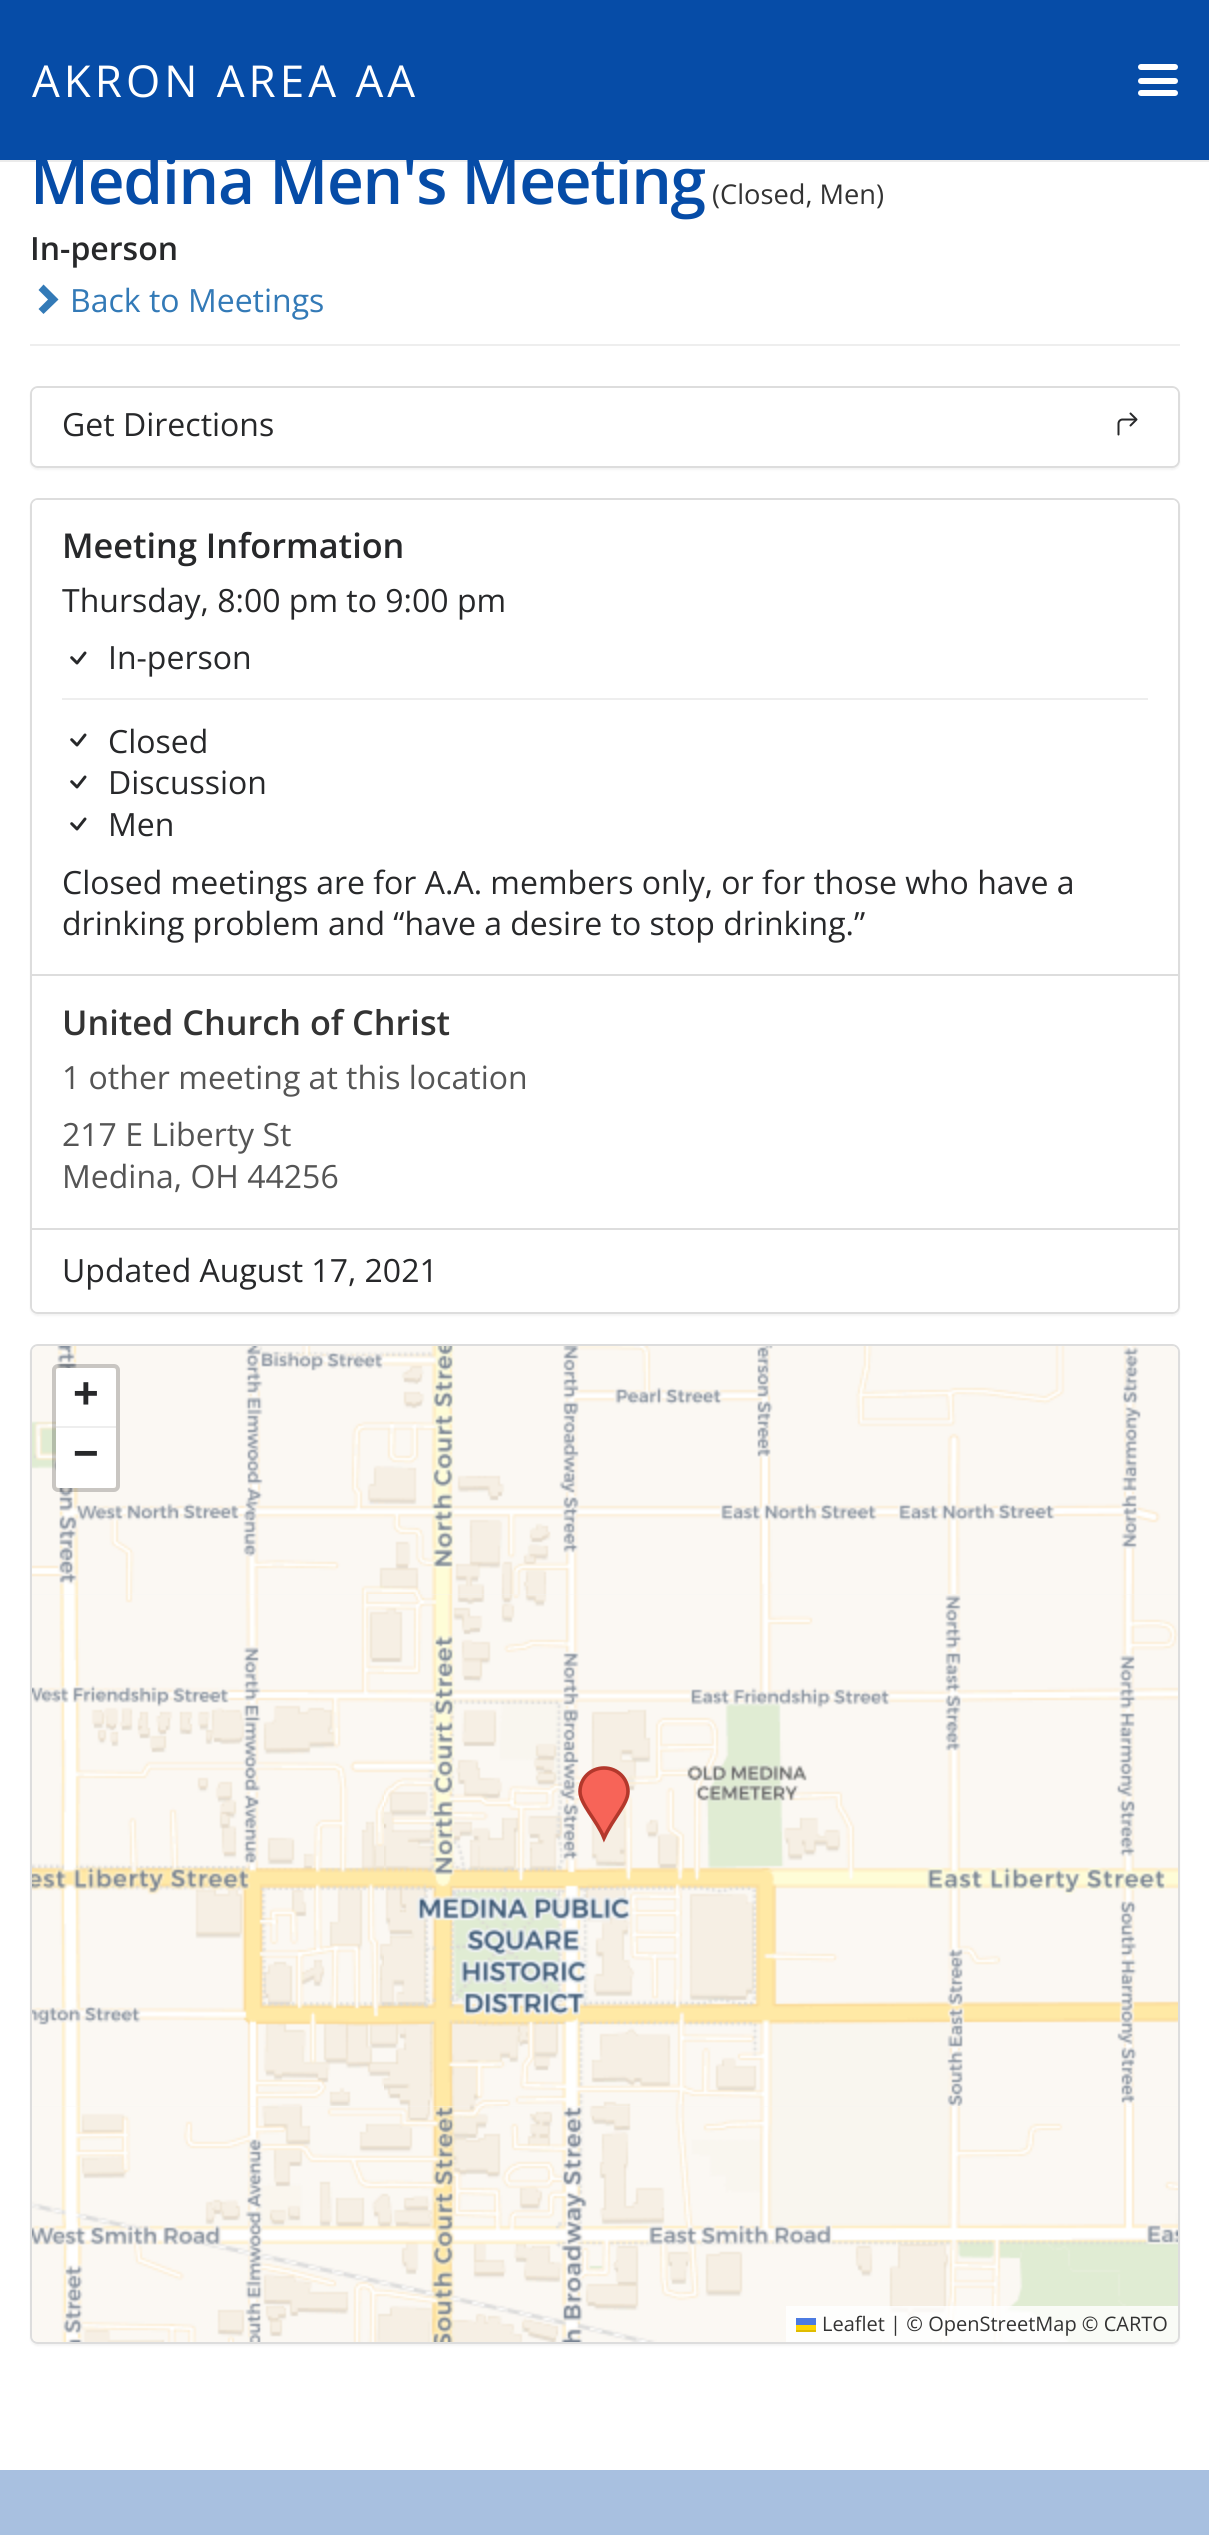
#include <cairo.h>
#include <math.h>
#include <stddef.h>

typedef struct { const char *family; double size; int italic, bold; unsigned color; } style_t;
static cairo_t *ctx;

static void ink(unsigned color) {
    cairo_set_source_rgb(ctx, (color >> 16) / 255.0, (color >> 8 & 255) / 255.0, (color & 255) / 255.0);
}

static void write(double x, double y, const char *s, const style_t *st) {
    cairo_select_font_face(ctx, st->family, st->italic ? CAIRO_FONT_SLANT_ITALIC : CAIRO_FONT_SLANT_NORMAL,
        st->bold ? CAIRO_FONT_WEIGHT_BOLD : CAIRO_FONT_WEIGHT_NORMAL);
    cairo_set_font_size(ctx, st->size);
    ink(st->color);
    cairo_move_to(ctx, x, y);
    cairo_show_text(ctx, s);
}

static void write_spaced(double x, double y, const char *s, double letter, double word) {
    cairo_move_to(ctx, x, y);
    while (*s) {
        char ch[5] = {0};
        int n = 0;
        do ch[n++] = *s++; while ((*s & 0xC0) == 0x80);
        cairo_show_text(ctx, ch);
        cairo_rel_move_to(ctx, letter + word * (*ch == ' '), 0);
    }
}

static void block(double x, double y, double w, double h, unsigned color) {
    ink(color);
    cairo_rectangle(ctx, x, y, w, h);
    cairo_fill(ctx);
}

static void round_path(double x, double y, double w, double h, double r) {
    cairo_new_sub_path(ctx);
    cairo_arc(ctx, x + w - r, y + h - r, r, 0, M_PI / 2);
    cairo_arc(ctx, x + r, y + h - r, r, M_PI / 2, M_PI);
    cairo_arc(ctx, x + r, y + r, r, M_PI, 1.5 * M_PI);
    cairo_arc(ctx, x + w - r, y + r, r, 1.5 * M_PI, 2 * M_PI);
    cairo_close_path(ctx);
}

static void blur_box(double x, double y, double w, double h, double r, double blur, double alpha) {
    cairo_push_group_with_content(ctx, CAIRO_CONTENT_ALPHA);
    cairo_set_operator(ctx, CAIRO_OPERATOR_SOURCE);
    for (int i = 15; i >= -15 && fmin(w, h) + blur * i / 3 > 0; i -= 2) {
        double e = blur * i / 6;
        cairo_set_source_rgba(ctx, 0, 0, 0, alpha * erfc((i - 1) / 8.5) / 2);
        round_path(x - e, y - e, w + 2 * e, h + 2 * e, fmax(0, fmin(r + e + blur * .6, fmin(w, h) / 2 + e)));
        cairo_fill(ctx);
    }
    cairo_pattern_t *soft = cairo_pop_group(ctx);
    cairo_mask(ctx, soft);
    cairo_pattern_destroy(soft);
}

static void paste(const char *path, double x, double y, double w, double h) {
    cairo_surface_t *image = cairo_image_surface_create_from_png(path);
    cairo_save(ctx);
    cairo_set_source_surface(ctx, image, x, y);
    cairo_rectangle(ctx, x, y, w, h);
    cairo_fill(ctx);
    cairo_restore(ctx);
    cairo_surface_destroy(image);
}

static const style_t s1 = {"Open Sans", 27.25, 0, 0, 0x333333};
static const style_t s2 = {"Open Sans SemiBold", 32, 0, 0, 0x27282a};
static const style_t s3 = {"Open Sans", 32, 0, 0, 0x337ab7};
static const style_t s4 = {"Open Sans", 32, 0, 0, 0x27282a};
static const style_t s5 = {"Open Sans SemiBold", 34.25, 0, 0, 0x27282a};
static const style_t s6 = {"Open Sans SemiBold", 34.25, 0, 0, 0x333333};
static const style_t s7 = {"Open Sans", 32, 0, 0, 0x555555};
static const style_t s8 = {"Liberation Sans", 44, 0, 1, 0x27282a};
static const style_t s9 = {"Open Sans", 20, 0, 0, 0x333333};

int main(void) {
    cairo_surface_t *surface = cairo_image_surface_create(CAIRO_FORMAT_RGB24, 1209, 2535);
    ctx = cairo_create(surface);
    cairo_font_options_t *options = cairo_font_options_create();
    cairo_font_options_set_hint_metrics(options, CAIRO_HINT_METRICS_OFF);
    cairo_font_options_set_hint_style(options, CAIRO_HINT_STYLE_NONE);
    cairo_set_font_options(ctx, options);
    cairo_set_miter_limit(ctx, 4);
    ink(0xffffff);
    cairo_paint(ctx);
    cairo_set_source_rgba(ctx, 0, 0, 0, 0.08);
    cairo_rectangle(ctx, 0, 160, 1209, 2);
    cairo_fill(ctx);
    block(0, 0, 1209, 160, 0x064ca7);
    cairo_select_font_face(ctx, "Open Sans", CAIRO_FONT_SLANT_NORMAL, CAIRO_FONT_WEIGHT_NORMAL);
    cairo_set_font_size(ctx, 44);
    ink(0xffffff);
    write_spaced(32, 97, "AKRON AREA AA", 4, 0);
    round_path(1138, 78, 40, 6, 3);
    cairo_fill(ctx);
    round_path(1138, 64, 40, 6, 3);
    cairo_fill(ctx);
    round_path(1138, 90, 40, 6, 3);
    cairo_fill(ctx);
    block(30, 344, 1150, 2, 0xeeeeee);
    cairo_select_font_face(ctx, "Open Sans SemiBold", CAIRO_FONT_SLANT_NORMAL, CAIRO_FONT_WEIGHT_NORMAL);
    cairo_set_font_size(ctx, 64);
    ink(0x064ca7);
    write_spaced(30, 204, "Medina Men's Meeting", -1.25, 0);
    write(712, 204, "(Closed, Men)", &s1);
    write(30, 260, "In-person", &s2);
    ink(0x337ab7);
    cairo_new_path(ctx);
    cairo_move_to(ctx, 58.5, 299.5);
    cairo_line_to(ctx, 43.5, 314);
    cairo_line_to(ctx, 38.5, 309);
    cairo_line_to(ctx, 48, 299.5);
    cairo_line_to(ctx, 38.5, 290);
    cairo_line_to(ctx, 43.5, 284.5);
    cairo_close_path(ctx);
    cairo_fill(ctx);
    write(70, 312, "Back to Meetings", &s3);
    ink(0x000000);
    blur_box(30, 388, 1150, 82, 8, 1, 0.05);
    round_path(31, 387, 1148, 80, 7);
    ink(0xdddddd);
    cairo_stroke(ctx);
    ink(0xffffff);
    round_path(32, 388, 1146, 78, 6);
    cairo_fill(ctx);
    write(62, 436, "Get Directions", &s4);
    paste("pic1.png", 1117, 412, 21, 24);
    ink(0x000000);
    blur_box(30, 500, 1150, 816, 8, 1, 0.05);
    ink(0xffffff);
    round_path(31, 499, 1148, 814, 7);
    cairo_fill_preserve(ctx);
    ink(0xdddddd);
    cairo_stroke(ctx);
    ink(0xffffff);
    cairo_new_path(ctx);
    cairo_move_to(ctx, 38, 500);
    cairo_line_to(ctx, 1172, 500);
    cairo_curve_to(ctx, 1175.5, 500, 1178, 502.5, 1178, 506);
    cairo_line_to(ctx, 1178, 976);
    cairo_line_to(ctx, 32, 976);
    cairo_line_to(ctx, 32, 506);
    cairo_curve_to(ctx, 32, 502.5, 34.5, 500, 38, 500);
    cairo_close_path(ctx);
    cairo_fill(ctx);
    block(32, 974, 1146, 2, 0xdddddd);
    write(62, 558, "Meeting Information", &s5);
    write(62, 612, "Thursday, 8:00 pm to 9:00 pm", &s4);
    paste("pic2.png", 70, 651, 17, 14);
    write(108, 669, "In-person", &s4);
    block(62, 698, 1086, 2, 0xeeeeee);
    paste("pic2.png", 70, 733, 17, 14);
    write(108, 753, "Closed", &s4);
    paste("pic2.png", 70, 775, 17, 14);
    write(108, 794, "Discussion", &s4);
    paste("pic2.png", 70, 817, 17, 14);
    write(108, 836, "Men", &s4);
    write(62, 894, "Closed meetings are for A.A. members only, or for those who have a", &s4);
    write(62, 935, "drinking problem and “have a desire to stop drinking.”", &s4);
    write(62, 1035, "United Church of Christ", &s6);
    write(62, 1089, "1 other meeting at this location", &s7);
    write(62, 1146, "217 E Liberty St", &s7);
    write(62, 1188, "Medina, OH 44256", &s7);
    ink(0xffffff);
    cairo_new_path(ctx);
    cairo_move_to(ctx, 32, 1228);
    cairo_line_to(ctx, 1178, 1228);
    cairo_line_to(ctx, 1178, 1306);
    cairo_curve_to(ctx, 1178, 1309.5, 1175.5, 1312, 1172, 1312);
    cairo_line_to(ctx, 38, 1312);
    cairo_curve_to(ctx, 34.5, 1312, 32, 1309.5, 32, 1306);
    cairo_close_path(ctx);
    cairo_fill(ctx);
    block(32, 1228, 1146, 2, 0xdddddd);
    write(62, 1282, "Updated August 17, 2021", &s4);
    ink(0x000000);
    blur_box(30, 1346, 1150, 1000, 8, 1, 0.05);
    round_path(31, 1345, 1148, 998, 7);
    ink(0xdddddd);
    cairo_stroke(ctx);
    paste("pic3.png", 32, 1346, 352, 248);
    paste("pic4.png", 384, 1346, 512, 248);
    paste("pic5.png", 896, 1346, 282, 248);
    paste("pic6.png", 32, 1594, 352, 512);
    paste("pic7.png", 384, 1594, 512, 512);
    paste("pic8.png", 896, 1594, 282, 512);
    paste("pic9.png", 32, 2105, 352, 237);
    paste("pic10.png", 384, 2105, 512, 237);
    paste("pic11.png", 896, 2105, 282, 237);
    ink(0xf76458);
    cairo_new_path(ctx);
    cairo_move_to(ctx, 604, 1768);
    cairo_curve_to(ctx, 617, 1768, 628, 1778, 628, 1791);
    cairo_curve_to(ctx, 628, 1804, 614, 1818, 604, 1838);
    cairo_curve_to(ctx, 597, 1821, 580, 1804, 580, 1791);
    cairo_curve_to(ctx, 580, 1778, 591, 1768, 604, 1768);
    cairo_close_path(ctx);
    cairo_fill(ctx);
    cairo_new_path(ctx);
    cairo_move_to(ctx, 604, 1768);
    cairo_curve_to(ctx, 617.5, 1768, 628, 1778.5, 628, 1791.5);
    cairo_curve_to(ctx, 628, 1804, 613.5, 1817.5, 604, 1838);
    cairo_curve_to(ctx, 597, 1820.5, 580, 1804, 580, 1791.5);
    cairo_curve_to(ctx, 580, 1778.5, 590.5, 1768, 604, 1768);
    cairo_close_path(ctx);
    ink(0xb3382c);
    cairo_set_line_width(ctx, 3.6);
    cairo_stroke(ctx);
    round_path(54, 1366, 64, 124, 4);
    cairo_set_source_rgba(ctx, 0, 0, 0, 0.2);
    cairo_set_line_width(ctx, 4);
    cairo_stroke(ctx);
    ink(0xffffff);
    cairo_new_path(ctx);
    cairo_move_to(ctx, 60, 1368);
    cairo_line_to(ctx, 112, 1368);
    cairo_curve_to(ctx, 114, 1368, 116, 1370, 116, 1372);
    cairo_line_to(ctx, 116, 1428);
    cairo_line_to(ctx, 56, 1428);
    cairo_line_to(ctx, 56, 1372);
    cairo_curve_to(ctx, 56, 1370, 58, 1368, 60, 1368);
    cairo_close_path(ctx);
    cairo_fill(ctx);
    block(56, 1426, 60, 2, 0xeeeeee);
    write(73, 1408, "+", &s8);
    ink(0xffffff);
    cairo_new_path(ctx);
    cairo_move_to(ctx, 56, 1428);
    cairo_line_to(ctx, 116, 1428);
    cairo_line_to(ctx, 116, 1484);
    cairo_curve_to(ctx, 116, 1486, 114, 1488, 112, 1488);
    cairo_line_to(ctx, 60, 1488);
    cairo_curve_to(ctx, 58, 1488, 56, 1486, 56, 1484);
    cairo_close_path(ctx);
    cairo_fill(ctx);
    write(73, 1468, "−", &s8);
    cairo_set_source_rgba(ctx, 1, 1, 1, 0.8);
    cairo_new_path(ctx);
    cairo_move_to(ctx, 786, 2306);
    cairo_line_to(ctx, 1178, 2306);
    cairo_line_to(ctx, 1178, 2336);
    cairo_curve_to(ctx, 1178, 2339.5, 1175.5, 2342, 1172, 2342);
    cairo_line_to(ctx, 786, 2342);
    cairo_close_path(ctx);
    cairo_fill(ctx);
    write(822, 2331, "Leaflet | © OpenStreetMap © CARTO", &s9);
    block(796, 2318, 20, 7, 0x4c7be1);
    block(796, 2325, 20, 5, 0xffd500);
    block(796, 2330, 20, 2, 0xe0bc00);
    block(0, 2470, 1209, 65, 0xa8c0e0);
    cairo_surface_write_to_png(surface, "screenshot.png");
    cairo_font_options_destroy(options);
    cairo_destroy(ctx);
    cairo_surface_destroy(surface);
    return 0;
}
